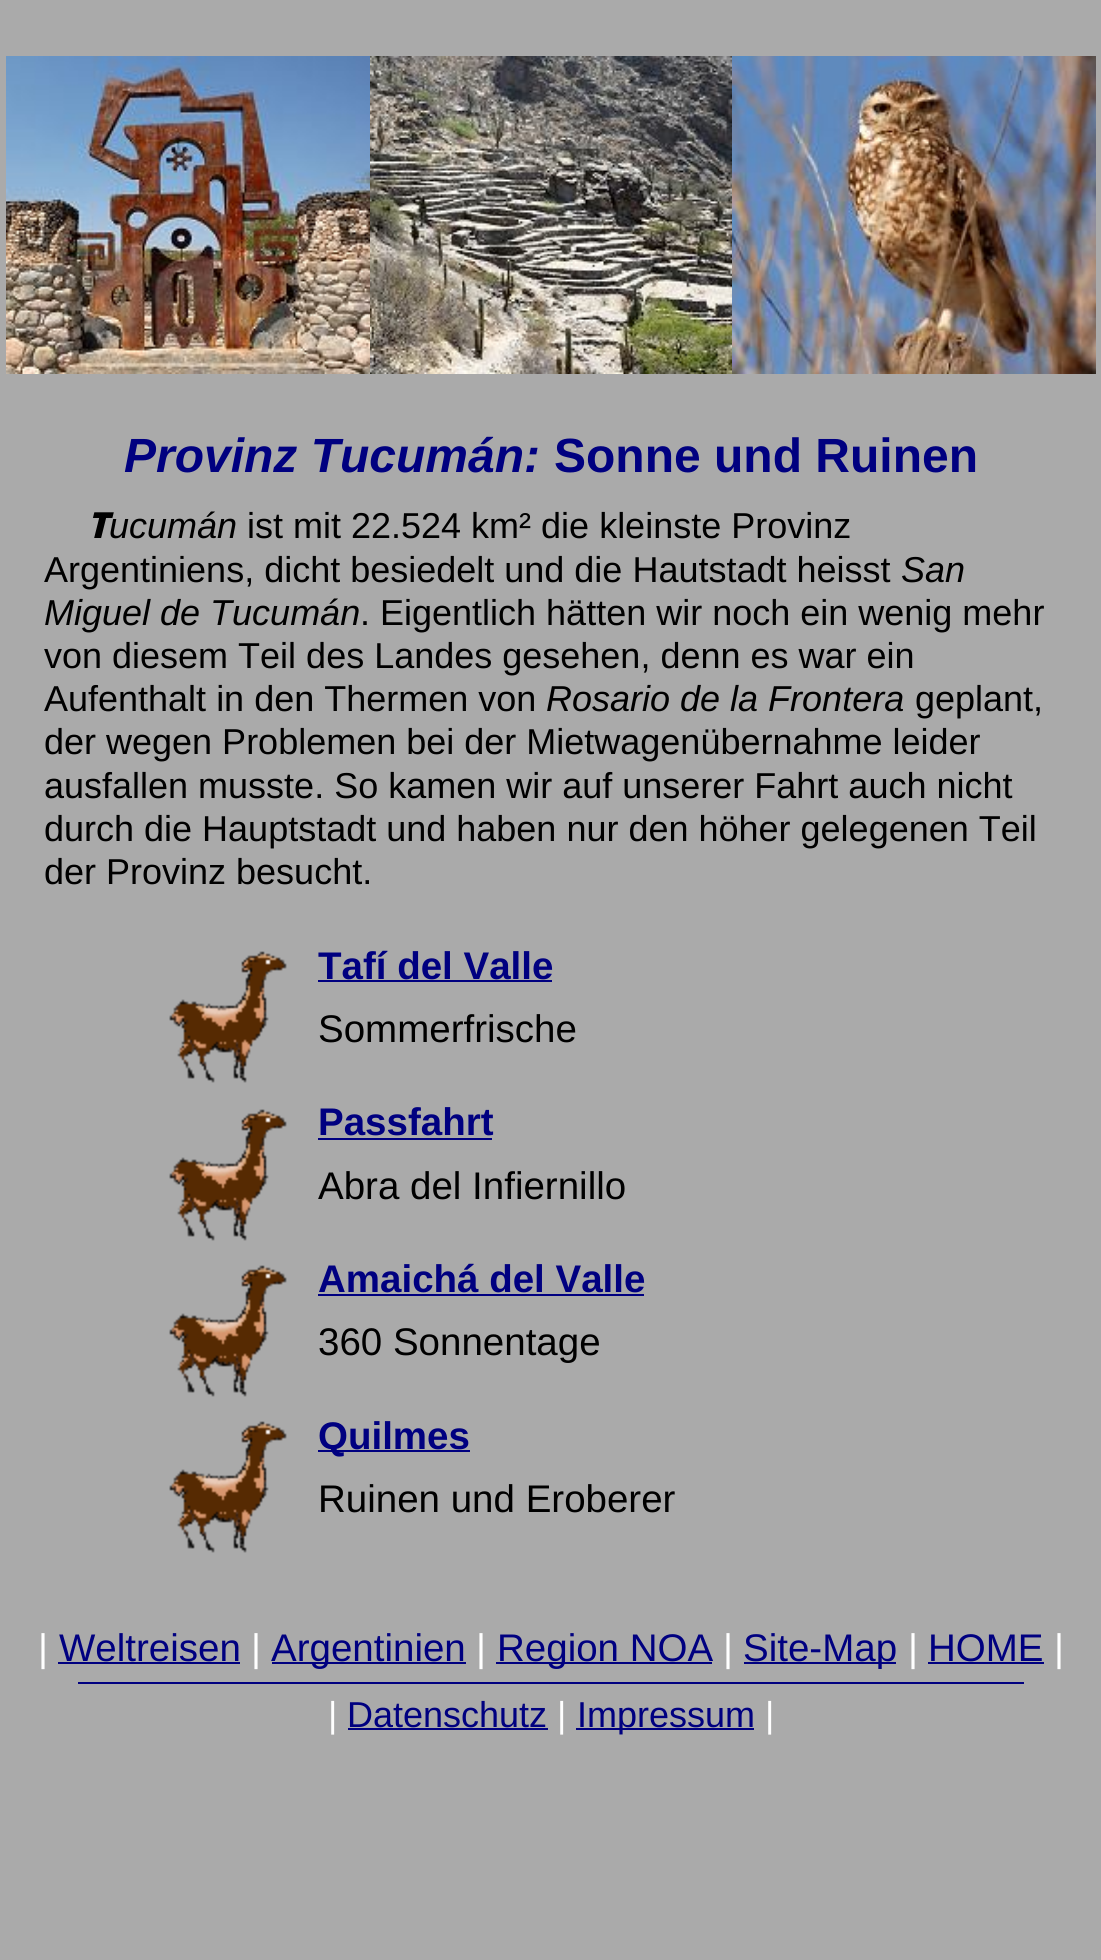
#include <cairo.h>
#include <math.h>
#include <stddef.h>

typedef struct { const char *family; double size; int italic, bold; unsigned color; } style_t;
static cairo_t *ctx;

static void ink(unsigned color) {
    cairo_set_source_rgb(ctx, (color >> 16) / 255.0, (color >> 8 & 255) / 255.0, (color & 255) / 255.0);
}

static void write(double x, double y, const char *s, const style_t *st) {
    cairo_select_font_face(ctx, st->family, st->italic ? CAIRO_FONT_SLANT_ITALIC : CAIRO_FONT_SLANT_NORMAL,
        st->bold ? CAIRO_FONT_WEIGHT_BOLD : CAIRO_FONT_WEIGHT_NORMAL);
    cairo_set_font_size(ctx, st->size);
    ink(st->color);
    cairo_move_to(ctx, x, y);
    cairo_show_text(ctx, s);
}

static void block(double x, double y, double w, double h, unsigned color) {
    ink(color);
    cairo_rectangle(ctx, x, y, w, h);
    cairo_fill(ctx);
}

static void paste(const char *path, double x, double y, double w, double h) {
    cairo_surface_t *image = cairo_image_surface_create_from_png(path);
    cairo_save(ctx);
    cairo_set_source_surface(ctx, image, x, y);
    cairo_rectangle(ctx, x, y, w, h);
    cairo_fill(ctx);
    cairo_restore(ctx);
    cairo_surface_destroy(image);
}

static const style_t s1 = {"Liberation Sans", 48, 1, 1, 0x000080};
static const style_t s2 = {"Liberation Sans", 48, 0, 1, 0x000080};
static const style_t s3 = {"Noto Sans Black", 36, 1, 0, 0x000000};
static const style_t s4 = {"Liberation Sans", 36, 1, 0, 0x000000};
static const style_t s5 = {"Liberation Sans", 36, 0, 0, 0x000000};
static const style_t s6 = {"Liberation Sans", 38.5, 0, 1, 0x000080};
static const style_t s7 = {"Liberation Sans", 38.5, 0, 0, 0x000000};
static const style_t s8 = {"Liberation Sans", 38.5, 0, 0, 0xffffff};
static const style_t s9 = {"Liberation Sans", 38.5, 0, 0, 0x000080};
static const style_t s10 = {"Liberation Sans", 36, 0, 0, 0xffffff};
static const style_t s11 = {"Liberation Sans", 36, 0, 0, 0x000080};

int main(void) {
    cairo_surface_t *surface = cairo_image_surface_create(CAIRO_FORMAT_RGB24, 1101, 1960);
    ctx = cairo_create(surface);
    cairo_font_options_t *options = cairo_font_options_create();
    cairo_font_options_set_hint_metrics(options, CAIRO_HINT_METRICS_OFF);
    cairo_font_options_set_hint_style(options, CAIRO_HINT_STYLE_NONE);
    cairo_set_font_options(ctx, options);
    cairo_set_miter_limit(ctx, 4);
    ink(0xaaaaaa);
    cairo_paint(ctx);
    paste("pic1.png", 6, 56, 364, 318);
    paste("pic2.png", 370, 56, 362, 318);
    paste("pic3.png", 732, 56, 364, 318);
    write(124, 472, "Provinz Tucumán:", &s1);
    write(554, 472, "Sonne und Ruinen", &s2);
    write(87, 538, "T", &s3);
    write(109, 538, "ucumán", &s4);
    write(247, 538, "ist mit 22.524 km² die kleinste Provinz", &s5);
    write(44, 582, "Argentiniens, dicht besiedelt und die Hautstadt heisst", &s5);
    write(901, 582, "San", &s4);
    write(44, 625, "Miguel de Tucumán", &s4);
    write(360, 625, ". Eigentlich hätten wir noch ein wenig mehr", &s5);
    write(44, 668, "von diesem Teil des Landes gesehen, denn es war ein", &s5);
    write(44, 711, "Aufenthalt in den Thermen von", &s5);
    write(546, 711, "Rosario de la Frontera", &s4);
    write(915, 711, "geplant,", &s5);
    write(44, 754, "der wegen Problemen bei der Mietwagenübernahme leider", &s5);
    write(44, 798, "ausfallen musste. So kamen wir auf unserer Fahrt auch nicht", &s5);
    write(44, 841, "durch die Hauptstadt und haben nur den höher gelegenen Teil", &s5);
    write(44, 884, "der Provinz besucht.", &s5);
    paste("pic4.png", 169, 951, 118, 132);
    write(318, 979, "Tafí del Valle", &s6);
    block(318, 980, 234, 2, 0x000080);
    write(318, 1042, "Sommerfrische", &s7);
    paste("pic4.png", 169, 1109, 118, 132);
    write(318, 1135, "Passfahrt", &s6);
    block(318, 1138, 174, 2, 0x000080);
    write(318, 1199, "Abra del Infiernillo", &s7);
    paste("pic4.png", 169, 1265, 118, 132);
    write(318, 1292, "Amaichá del Valle", &s6);
    block(318, 1294, 326, 2, 0x000080);
    write(318, 1355, "360 Sonnentage", &s7);
    paste("pic4.png", 169, 1421, 118, 132);
    block(318, 1450, 152, 2, 0x000080);
    write(318, 1449, "Quilmes", &s6);
    write(318, 1512, "Ruinen und Eroberer", &s7);
    write(38, 1661, "|", &s8);
    write(59, 1661, "Weltreisen", &s9);
    block(58, 1662, 182, 2, 0x000080);
    write(251, 1661, "|", &s8);
    block(272, 1662, 194, 2, 0x000080);
    write(271, 1661, "Argentinien", &s9);
    write(476, 1661, "|", &s8);
    block(496, 1662, 216, 2, 0x000080);
    write(497, 1661, "Region NOA", &s9);
    write(723, 1661, "|", &s8);
    block(744, 1662, 152, 2, 0x000080);
    write(743, 1661, "Site-Map", &s9);
    write(908, 1661, "|", &s8);
    write(928, 1661, "HOME", &s9);
    block(928, 1662, 116, 2, 0x000080);
    write(1054, 1661, "|", &s8);
    block(78, 1682, 946, 2, 0x000080);
    write(328, 1727, "|", &s10);
    write(347, 1727, "Datenschutz", &s11);
    block(348, 1728, 200, 2, 0x000080);
    write(557, 1727, "|", &s10);
    block(576, 1728, 178, 2, 0x000080);
    write(577, 1727, "Impressum", &s11);
    write(765, 1727, "|", &s10);
    cairo_surface_write_to_png(surface, "screenshot.png");
    cairo_font_options_destroy(options);
    cairo_destroy(ctx);
    cairo_surface_destroy(surface);
    return 0;
}
